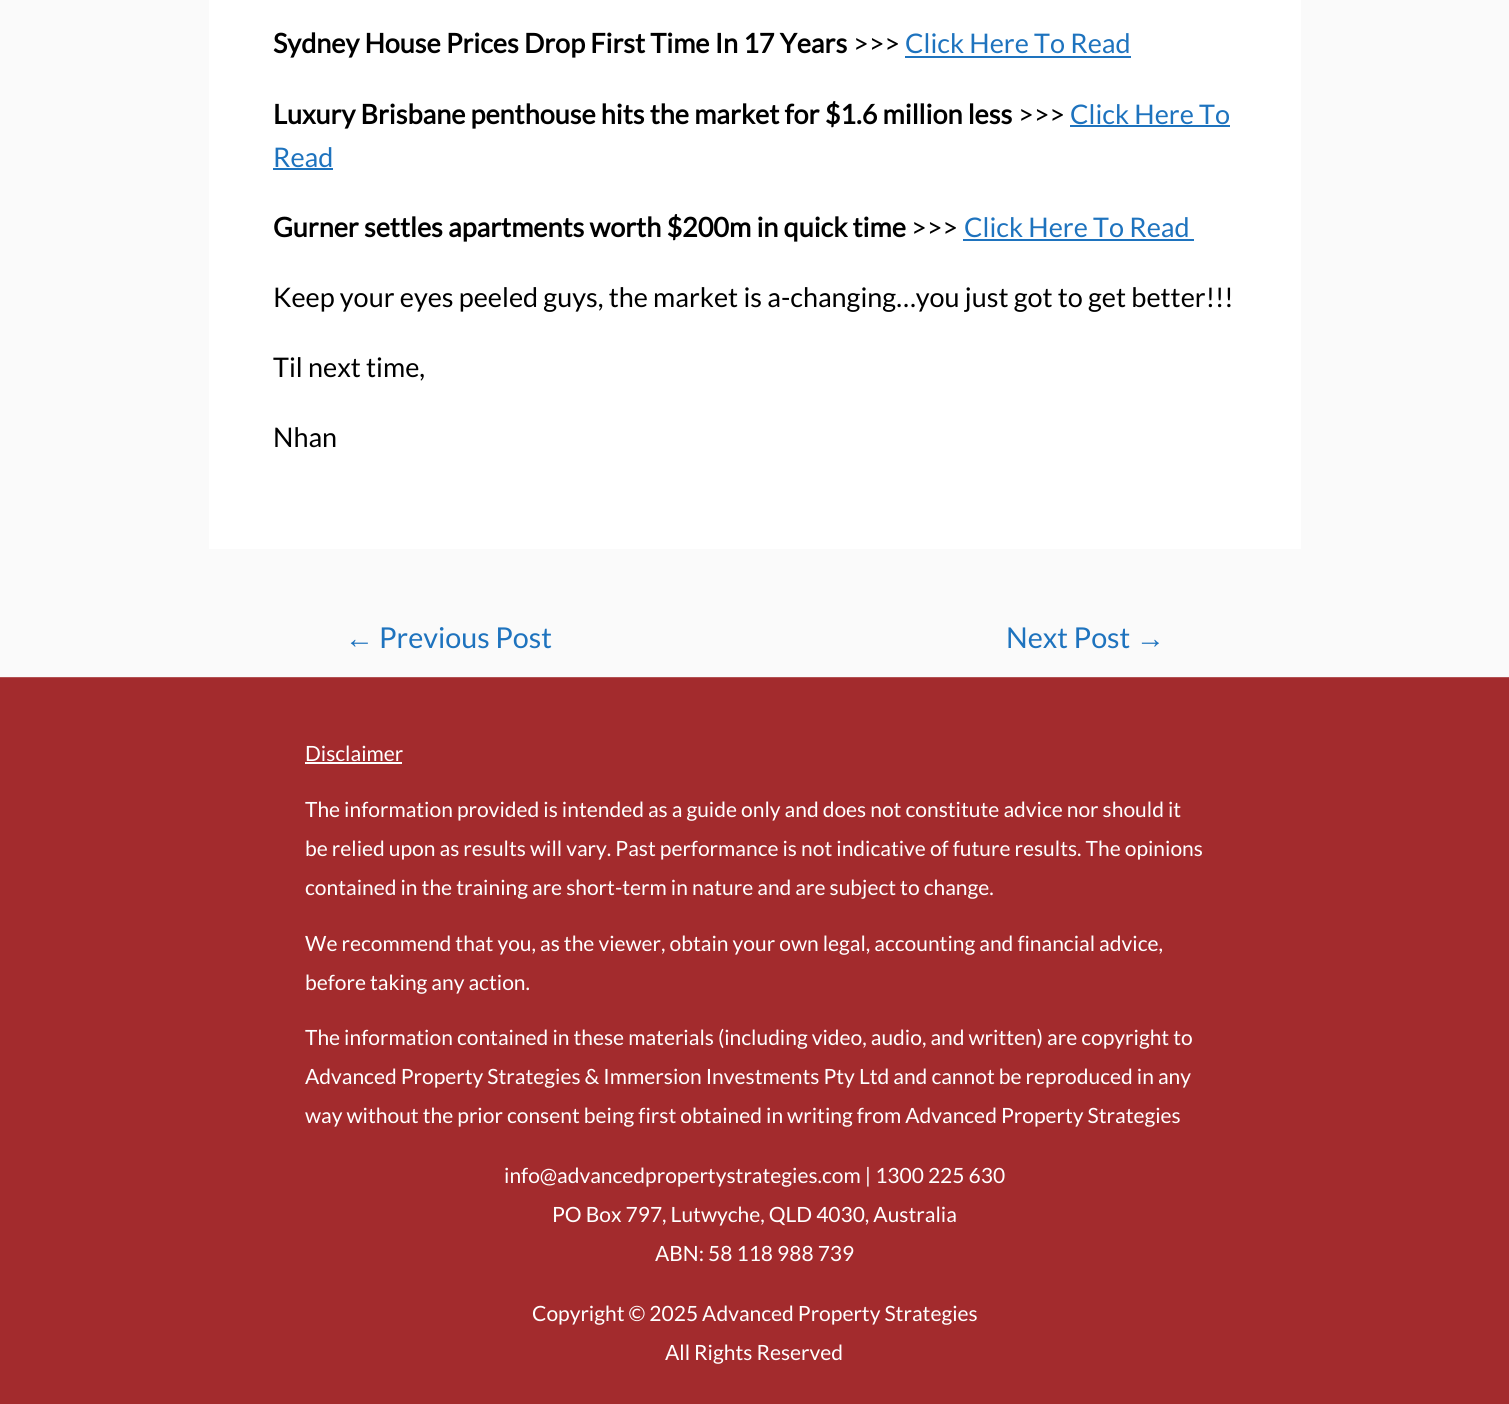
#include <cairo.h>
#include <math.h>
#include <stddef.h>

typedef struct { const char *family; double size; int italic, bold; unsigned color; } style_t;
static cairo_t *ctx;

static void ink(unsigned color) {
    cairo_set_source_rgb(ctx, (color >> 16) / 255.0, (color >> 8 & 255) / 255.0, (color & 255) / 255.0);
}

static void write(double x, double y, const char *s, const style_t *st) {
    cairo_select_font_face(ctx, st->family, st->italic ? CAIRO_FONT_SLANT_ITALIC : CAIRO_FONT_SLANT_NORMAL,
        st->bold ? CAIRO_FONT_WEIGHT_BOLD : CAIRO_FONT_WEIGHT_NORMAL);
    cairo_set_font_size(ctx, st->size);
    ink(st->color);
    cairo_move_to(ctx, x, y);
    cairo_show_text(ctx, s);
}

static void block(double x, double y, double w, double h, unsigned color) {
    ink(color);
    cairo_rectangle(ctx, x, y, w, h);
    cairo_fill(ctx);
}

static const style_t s1 = {"Lato", 27, 0, 1, 0x000000};
static const style_t s2 = {"Lato", 27, 0, 0, 0x000000};
static const style_t s3 = {"Lato", 27, 0, 0, 0x1e73be};
static const style_t s4 = {"Liberation Sans", 28.75, 0, 0, 0x1e73be};
static const style_t s5 = {"Lato", 28.75, 0, 0, 0x1e73be};
static const style_t s6 = {"Lato", 21, 0, 0, 0xffffff};

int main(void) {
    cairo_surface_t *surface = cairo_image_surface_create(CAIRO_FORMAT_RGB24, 1509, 1404);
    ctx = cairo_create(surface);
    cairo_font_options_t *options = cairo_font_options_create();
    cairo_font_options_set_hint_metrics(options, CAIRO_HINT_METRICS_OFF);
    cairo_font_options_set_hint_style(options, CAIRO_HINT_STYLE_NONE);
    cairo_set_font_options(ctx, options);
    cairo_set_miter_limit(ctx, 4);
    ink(0xfafafa);
    cairo_paint(ctx);
    block(209, 0, 1092, 549, 0xffffff);
    write(273, 53, "Sydney House Prices Drop First Time In 17 Years", &s1);
    write(853, 53, ">>>", &s2);
    write(905, 53, "Click Here To Read", &s3);
    block(905, 56, 226, 2, 0x1e73be);
    write(273, 124, "Luxury Brisbane penthouse hits the market for $1.6 million less", &s1);
    write(1018, 124, ">>>", &s2);
    write(1070, 124, "Click Here To", &s3);
    block(1070, 125, 160, 2, 0x1e73be);
    write(273, 167, "Read", &s3);
    block(273, 168, 60, 2, 0x1e73be);
    write(273, 237, "Gurner settles apartments worth $200m in quick time", &s1);
    write(911, 237, ">>>", &s2);
    write(964, 237, "Click Here To Read", &s3);
    block(963, 239, 231, 2, 0x1e73be);
    write(273, 307, "Keep your eyes peeled guys, the market is a-changing…you just got to get better!!!", &s2);
    write(273, 377, "Til next time,", &s2);
    write(273, 447, "Nhan", &s2);
    write(345, 648, "←", &s4);
    write(379, 648, "Previous Post", &s5);
    write(1006, 648, "Next Post", &s5);
    write(1136, 648, "→", &s4);
    block(0, 677, 1509, 1, 0xb25254);
    block(0, 678, 1509, 726, 0xa32b2d);
    write(305, 761, "Disclaimer", &s6);
    block(305, 762, 97, 2, 0xffffff);
    write(305, 817, "The information provided is intended as a guide only and does not constitute advice nor should it", &s6);
    write(305, 856, "be relied upon as results will vary. Past performance is not indicative of future results. The opinions", &s6);
    write(305, 895, "contained in the training are short-term in nature and are subject to change.", &s6);
    write(305, 951, "We recommend that you, as the viewer, obtain your own legal, accounting and financial advice,", &s6);
    write(305, 990, "before taking any action.", &s6);
    write(305, 1045, "The information contained in these materials (including video, audio, and written) are copyright to", &s6);
    write(305, 1084, "Advanced Property Strategies & Immersion Investments Pty Ltd and cannot be reproduced in any", &s6);
    write(305, 1123, "way without the prior consent being first obtained in writing from Advanced Property Strategies", &s6);
    write(504, 1183, "info@advancedpropertystrategies.com | 1300 225 630", &s6);
    write(552, 1222, "PO Box 797, Lutwyche, QLD 4030, Australia", &s6);
    write(655, 1261, "ABN: 58 118 988 739", &s6);
    write(532, 1321, "Copyright © 2025 Advanced Property Strategies", &s6);
    write(665, 1360, "All Rights Reserved", &s6);
    cairo_surface_write_to_png(surface, "screenshot.png");
    cairo_font_options_destroy(options);
    cairo_destroy(ctx);
    cairo_surface_destroy(surface);
    return 0;
}
